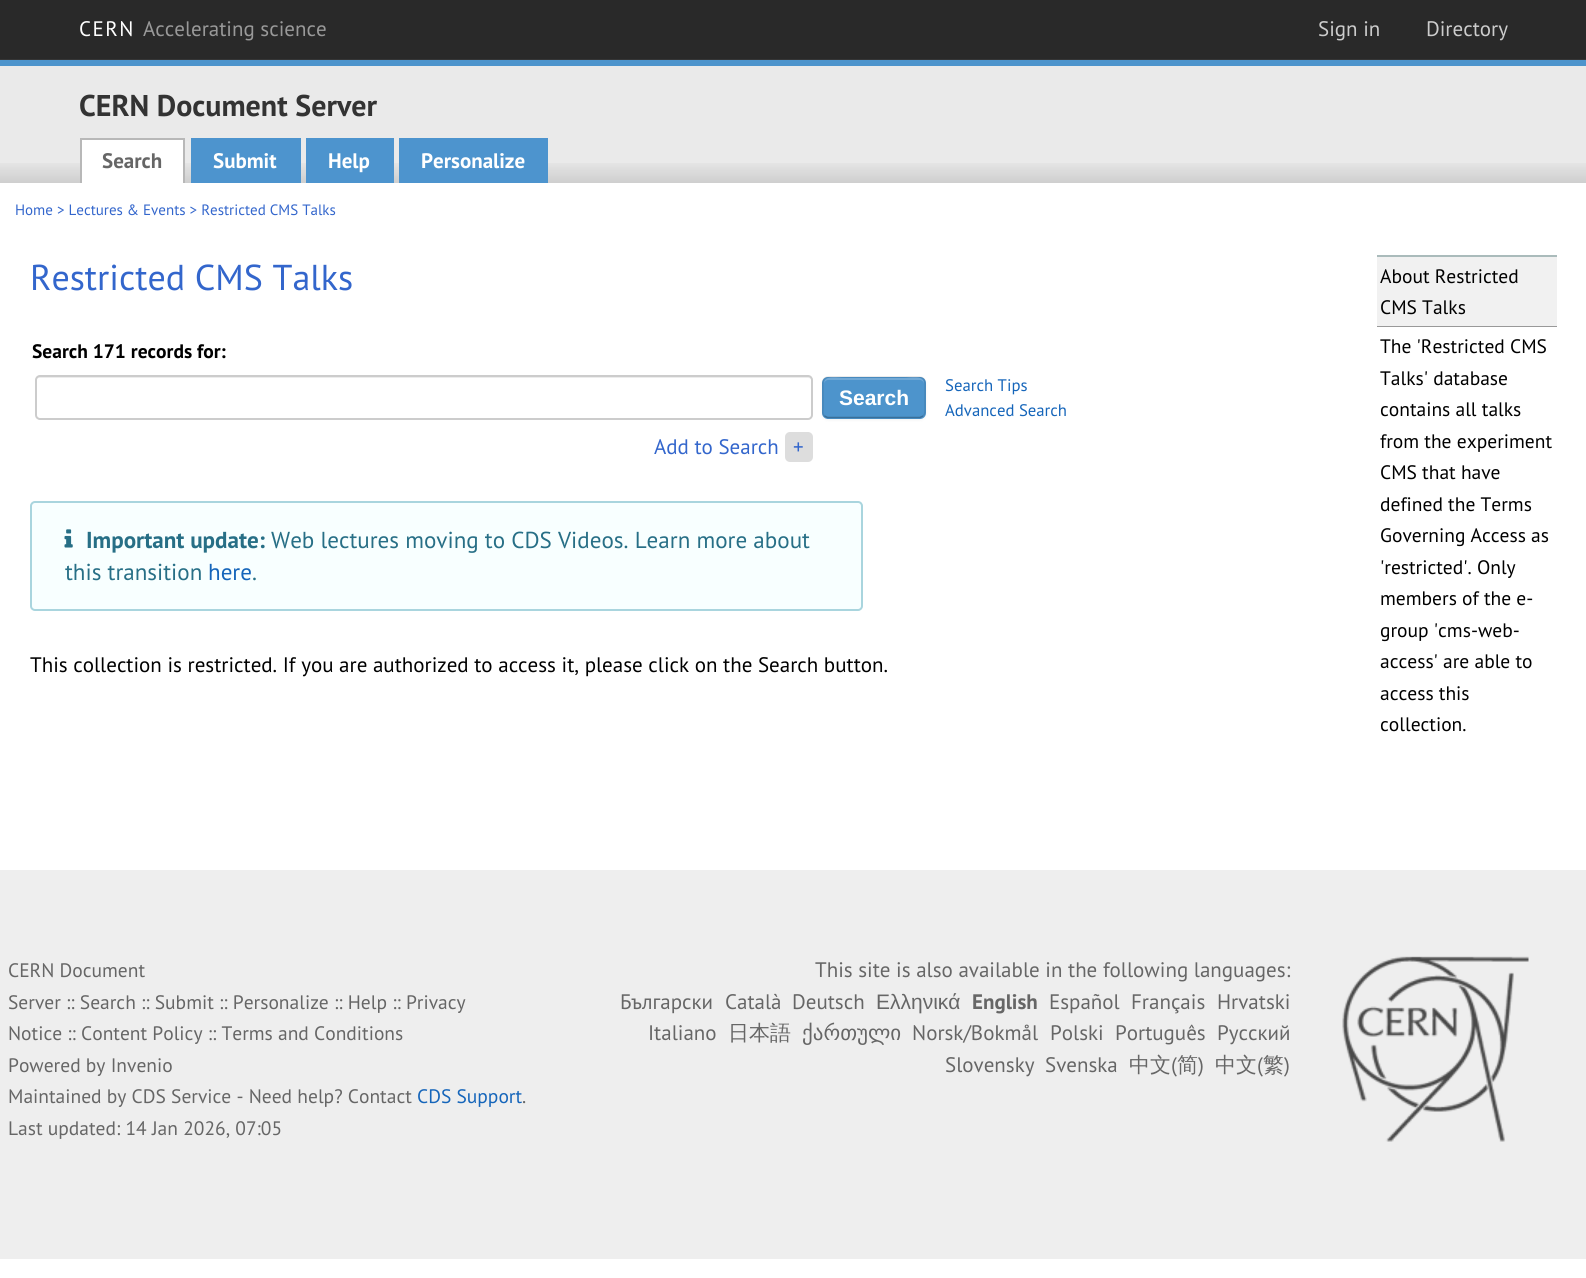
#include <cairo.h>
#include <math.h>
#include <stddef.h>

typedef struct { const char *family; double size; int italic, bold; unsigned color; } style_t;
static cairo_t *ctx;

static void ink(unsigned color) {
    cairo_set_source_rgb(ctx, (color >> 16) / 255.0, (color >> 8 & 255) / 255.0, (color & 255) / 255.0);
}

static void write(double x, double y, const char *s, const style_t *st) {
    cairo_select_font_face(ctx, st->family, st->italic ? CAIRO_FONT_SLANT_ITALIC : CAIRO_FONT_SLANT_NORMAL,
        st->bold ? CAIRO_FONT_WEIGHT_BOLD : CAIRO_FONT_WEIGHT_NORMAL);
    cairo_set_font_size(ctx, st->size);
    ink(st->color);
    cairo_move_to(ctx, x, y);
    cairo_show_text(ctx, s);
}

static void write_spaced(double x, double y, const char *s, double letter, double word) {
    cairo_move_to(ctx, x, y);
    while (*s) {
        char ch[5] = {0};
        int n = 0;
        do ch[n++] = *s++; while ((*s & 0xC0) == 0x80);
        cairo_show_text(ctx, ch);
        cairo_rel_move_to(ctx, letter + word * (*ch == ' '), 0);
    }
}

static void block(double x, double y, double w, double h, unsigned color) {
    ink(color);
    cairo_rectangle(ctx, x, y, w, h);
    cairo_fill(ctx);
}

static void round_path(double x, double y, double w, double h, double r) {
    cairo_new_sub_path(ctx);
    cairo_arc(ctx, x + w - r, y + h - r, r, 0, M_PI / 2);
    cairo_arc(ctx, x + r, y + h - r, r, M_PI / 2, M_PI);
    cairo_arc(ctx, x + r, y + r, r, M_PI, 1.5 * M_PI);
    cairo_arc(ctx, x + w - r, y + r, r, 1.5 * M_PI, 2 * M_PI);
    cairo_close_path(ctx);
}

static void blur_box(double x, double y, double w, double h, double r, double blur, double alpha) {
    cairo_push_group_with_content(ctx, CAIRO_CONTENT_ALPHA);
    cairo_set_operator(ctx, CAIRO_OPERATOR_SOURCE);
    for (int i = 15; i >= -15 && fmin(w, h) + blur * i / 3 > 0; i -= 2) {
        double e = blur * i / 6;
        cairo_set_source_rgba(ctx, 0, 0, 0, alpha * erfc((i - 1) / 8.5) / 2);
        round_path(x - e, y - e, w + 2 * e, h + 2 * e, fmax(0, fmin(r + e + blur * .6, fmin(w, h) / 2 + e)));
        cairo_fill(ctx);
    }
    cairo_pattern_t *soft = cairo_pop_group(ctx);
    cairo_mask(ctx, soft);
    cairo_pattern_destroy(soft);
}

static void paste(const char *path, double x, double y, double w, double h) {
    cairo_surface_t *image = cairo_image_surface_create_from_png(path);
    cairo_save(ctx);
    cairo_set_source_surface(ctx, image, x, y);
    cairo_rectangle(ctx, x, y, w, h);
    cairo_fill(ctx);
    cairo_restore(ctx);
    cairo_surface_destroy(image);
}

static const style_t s1 = {"PT Sans", 21, 0, 0, 0x999999};
static const style_t s2 = {"PT Sans", 21, 0, 0, 0xcccccc};
static const style_t s3 = {"PT Sans", 30, 0, 1, 0x333333};
static const style_t s4 = {"PT Sans", 21, 0, 1, 0x666666};
static const style_t s5 = {"PT Sans", 21, 0, 1, 0xffffff};
static const style_t s6 = {"PT Sans", 15, 0, 0, 0x3366cc};
static const style_t s7 = {"PT Sans", 36, 0, 0, 0x3366cc};
static const style_t s8 = {"PT Sans", 19.5, 0, 1, 0x000000};
static const style_t s9 = {"Liberation Sans", 21, 0, 1, 0xffffff};
static const style_t s10 = {"PT Sans", 16.75, 0, 0, 0x1565ba};
static const style_t s11 = {"PT Sans", 21, 0, 0, 0x3366cc};
static const style_t s12 = {"PT Sans", 23.1, 0, 1, 0x276f86};
static const style_t s13 = {"PT Sans", 23.1, 0, 0, 0x276f86};
static const style_t s14 = {"PT Sans", 23.1, 0, 0, 0x1565ba};
static const style_t s15 = {"PT Sans", 21, 0, 0, 0x000000};
static const style_t s16 = {"PT Sans", 19.5, 0, 0, 0x000000};
static const style_t s17 = {"PT Sans", 19.5, 0, 0, 0x666666};
static const style_t s18 = {"PT Sans", 19.5, 0, 0, 0x1565ba};
static const style_t s19 = {"PT Sans", 21, 0, 0, 0x666666};
static const style_t s20 = {"Liberation Sans", 21, 0, 0, 0x666666};
static const style_t s21 = {"WenQuanYi Zen Hei Medium", 21, 0, 0, 0x666666};
static const style_t s22 = {"DejaVu Sans", 21, 0, 0, 0x666666};

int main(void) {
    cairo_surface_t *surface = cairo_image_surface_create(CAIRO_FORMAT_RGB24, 1586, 1278);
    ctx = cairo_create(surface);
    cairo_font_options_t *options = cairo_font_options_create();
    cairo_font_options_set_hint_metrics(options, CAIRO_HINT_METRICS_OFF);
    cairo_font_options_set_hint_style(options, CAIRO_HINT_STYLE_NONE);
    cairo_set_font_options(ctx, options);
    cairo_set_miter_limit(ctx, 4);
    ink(0xffffff);
    cairo_paint(ctx);
    block(0, 0, 1586, 59, 0x292929);
    block(0, 59, 1586, 1, 0x353535);
    cairo_select_font_face(ctx, "PT Sans", CAIRO_FONT_SLANT_NORMAL, CAIRO_FONT_WEIGHT_NORMAL);
    cairo_set_font_size(ctx, 21);
    ink(0xffffff);
    write_spaced(79, 36, "CERN", 1.5, 0);
    write(143, 36, "Accelerating science", &s1);
    write(1318, 36, "Sign in", &s2);
    write(1426, 36, "Directory", &s2);
    block(0, 66, 1586, 117, 0xeaeaea);
    paste("pic1.png", 0, 163, 1586, 20);
    block(0, 60, 1586, 6, 0x4d94cc);
    write(79, 116, "CERN Document Server", &s3);
    block(82, 140, 101, 43, 0xffffff);
    block(80, 138, 105, 2, 0xb8b8b8);
    block(183, 138, 2, 45, 0xb8b8b8);
    block(80, 138, 2, 45, 0xb8b8b8);
    write(102, 168, "Search", &s4);
    block(191, 138, 110, 45, 0x4d94ce);
    write(213, 168, "Submit", &s5);
    block(306, 138, 88, 45, 0x4d94ce);
    write(328, 168, "Help", &s5);
    block(399, 138, 149, 45, 0x4d94ce);
    write(421, 168, "Personalize", &s5);
    write(15, 215, "Home > Lectures & Events > Restricted CMS Talks", &s6);
    write(30, 290, "Restricted CMS Talks", &s7);
    write(32, 358, "Search 171 records for:", &s8);
    ink(0xececec);
    cairo_new_path(ctx);
    cairo_move_to(ctx, 39, 378);
    cairo_line_to(ctx, 808, 378);
    cairo_curve_to(ctx, 810, 378, 812, 379, 812, 381);
    cairo_curve_to(ctx, 812, 379, 811, 377, 809, 377);
    cairo_line_to(ctx, 39, 377);
    cairo_curve_to(ctx, 37, 377, 36, 379, 36, 381);
    cairo_curve_to(ctx, 36, 379, 37, 378, 39, 378);
    cairo_close_path(ctx);
    cairo_fill(ctx);
    round_path(36, 376, 776, 43, 4);
    ink(0xcccccc);
    cairo_stroke(ctx);
    ink(0x000000);
    blur_box(822, 378, 104, 42, 6, 1.5, 0.05);
    ink(0x4d94cc);
    round_path(822, 377, 104, 42, 6);
    cairo_fill(ctx);
    ink(0x71a9d6);
    cairo_new_path(ctx);
    cairo_move_to(ctx, 828, 380);
    cairo_line_to(ctx, 920, 380);
    cairo_curve_to(ctx, 922, 380, 924, 382, 924, 384);
    cairo_curve_to(ctx, 924, 374, 909, 378, 904, 378);
    cairo_line_to(ctx, 844, 378);
    cairo_curve_to(ctx, 839, 378, 824, 374, 824, 384);
    cairo_curve_to(ctx, 824, 382, 826, 380, 828, 380);
    cairo_close_path(ctx);
    cairo_fill(ctx);
    cairo_new_path(ctx);
    cairo_move_to(ctx, 923, 416);
    cairo_line_to(ctx, 920, 417.5);
    cairo_line_to(ctx, 827.5, 417.5);
    cairo_line_to(ctx, 824.5, 416);
    ink(0x3a6f99);
    cairo_set_line_width(ctx, 1.5);
    cairo_stroke(ctx);
    cairo_new_path(ctx);
    cairo_move_to(ctx, 824.5, 416);
    cairo_curve_to(ctx, 822, 414, 823, 410.5, 823, 407.5);
    cairo_line_to(ctx, 823, 397.5);
    cairo_curve_to(ctx, 823, 374.5, 819.5, 377, 843, 377);
    cairo_line_to(ctx, 904, 377);
    cairo_curve_to(ctx, 928, 377, 925, 374.5, 925, 397.5);
    cairo_line_to(ctx, 925, 407.5);
    cairo_curve_to(ctx, 925, 410.5, 925.5, 414, 923, 416);
    cairo_set_source_rgba(ctx, 0, 0, 0, 0.1);
    cairo_stroke(ctx);
    write(839, 405, "Search", &s9);
    write(945, 391, "Search Tips", &s10);
    write(945, 416, "Advanced Search", &s10);
    write(654, 454, "Add to Search", &s11);
    ink(0xdddddd);
    round_path(785, 432, 28, 30, 5);
    cairo_fill(ctx);
    write(793, 454, "+", &s11);
    ink(0xf8ffff);
    round_path(31, 502, 831, 108, 4);
    cairo_fill_preserve(ctx);
    ink(0xa9d5de);
    cairo_set_line_width(ctx, 2);
    cairo_stroke(ctx);
    paste("pic2.png", 64, 529, 9, 19);
    write(86, 548, "Important update:", &s12);
    write(271, 548, "Web lectures moving to CDS Videos. Learn more about", &s13);
    write(65, 580, "this transition", &s13);
    write(208, 580, "here", &s14);
    write(252, 580, ".", &s13);
    write(30, 672, "This collection is restricted. If you are authorized to access it, please click on the Search button.", &s15);
    block(1377, 255, 180, 2, 0xaabbbb);
    block(1377, 257, 180, 69, 0xf1f1f1);
    block(1377, 326, 180, 1, 0x999999);
    write(1380, 283, "About Restricted", &s16);
    write(1380, 314, "CMS Talks", &s16);
    write(1380, 353, "The 'Restricted CMS", &s16);
    write(1380, 385, "Talks' database", &s16);
    write(1380, 416, "contains all talks", &s16);
    write(1380, 448, "from the experiment", &s16);
    write(1380, 479, "CMS that have", &s16);
    write(1380, 511, "defined the Terms", &s16);
    write(1380, 542, "Governing Access as", &s16);
    write(1380, 574, "'restricted'. Only", &s16);
    write(1380, 605, "members of the e-", &s16);
    write(1380, 637, "group 'cms-web-", &s16);
    write(1380, 668, "access' are able to", &s16);
    write(1380, 700, "access this", &s16);
    write(1380, 731, "collection.", &s16);
    block(0, 870, 1586, 389, 0xeeeeee);
    write(8, 977, "CERN Document", &s17);
    write(8, 1009, "Server :: Search :: Submit :: Personalize :: Help :: Privacy", &s17);
    write(8, 1040, "Notice :: Content Policy :: Terms and Conditions", &s17);
    write(8, 1072, "Powered by Invenio", &s17);
    write(8, 1103, "Maintained by CDS Service - Need help? Contact", &s17);
    write(417, 1103, "CDS Support", &s18);
    write(522, 1103, ".", &s17);
    write(8, 1135, "Last updated: 14 Jan 2026, 07:05", &s17);
    write(815, 977, "This site is also available in the following languages:", &s19);
    write(620, 1009, "Български", &s19);
    write(725, 1009, "Català", &s19);
    write(792, 1009, "Deutsch", &s19);
    write(876, 1009, "Ελληνικά", &s20);
    write(972, 1009, "English", &s4);
    write(1049, 1009, "Español", &s19);
    write(1131, 1009, "Français", &s19);
    write(1217, 1009, "Hrvatski", &s19);
    write(648, 1040, "Italiano", &s19);
    write(728, 1040, "日本語", &s21);
    write(802, 1040, "ქართული", &s22);
    write(912, 1040, "Norsk/Bokmål", &s19);
    write(1050, 1040, "Polski", &s19);
    write(1115, 1040, "Português", &s19);
    write(1217, 1040, "Русский", &s19);
    write(945, 1072, "Slovensky", &s19);
    write(1045, 1072, "Svenska", &s19);
    write(1129, 1072, "中文", &s21);
    write(1171, 1072, "(", &s19);
    write(1177, 1072, "简", &s21);
    write(1198, 1072, ")", &s19);
    write(1215, 1072, "中文", &s21);
    write(1257, 1072, "(", &s19);
    write(1263, 1072, "繁", &s21);
    write(1284, 1072, ")", &s19);
    paste("pic3.png", 1342, 956, 187, 186);
    cairo_surface_write_to_png(surface, "screenshot.png");
    cairo_font_options_destroy(options);
    cairo_destroy(ctx);
    cairo_surface_destroy(surface);
    return 0;
}
